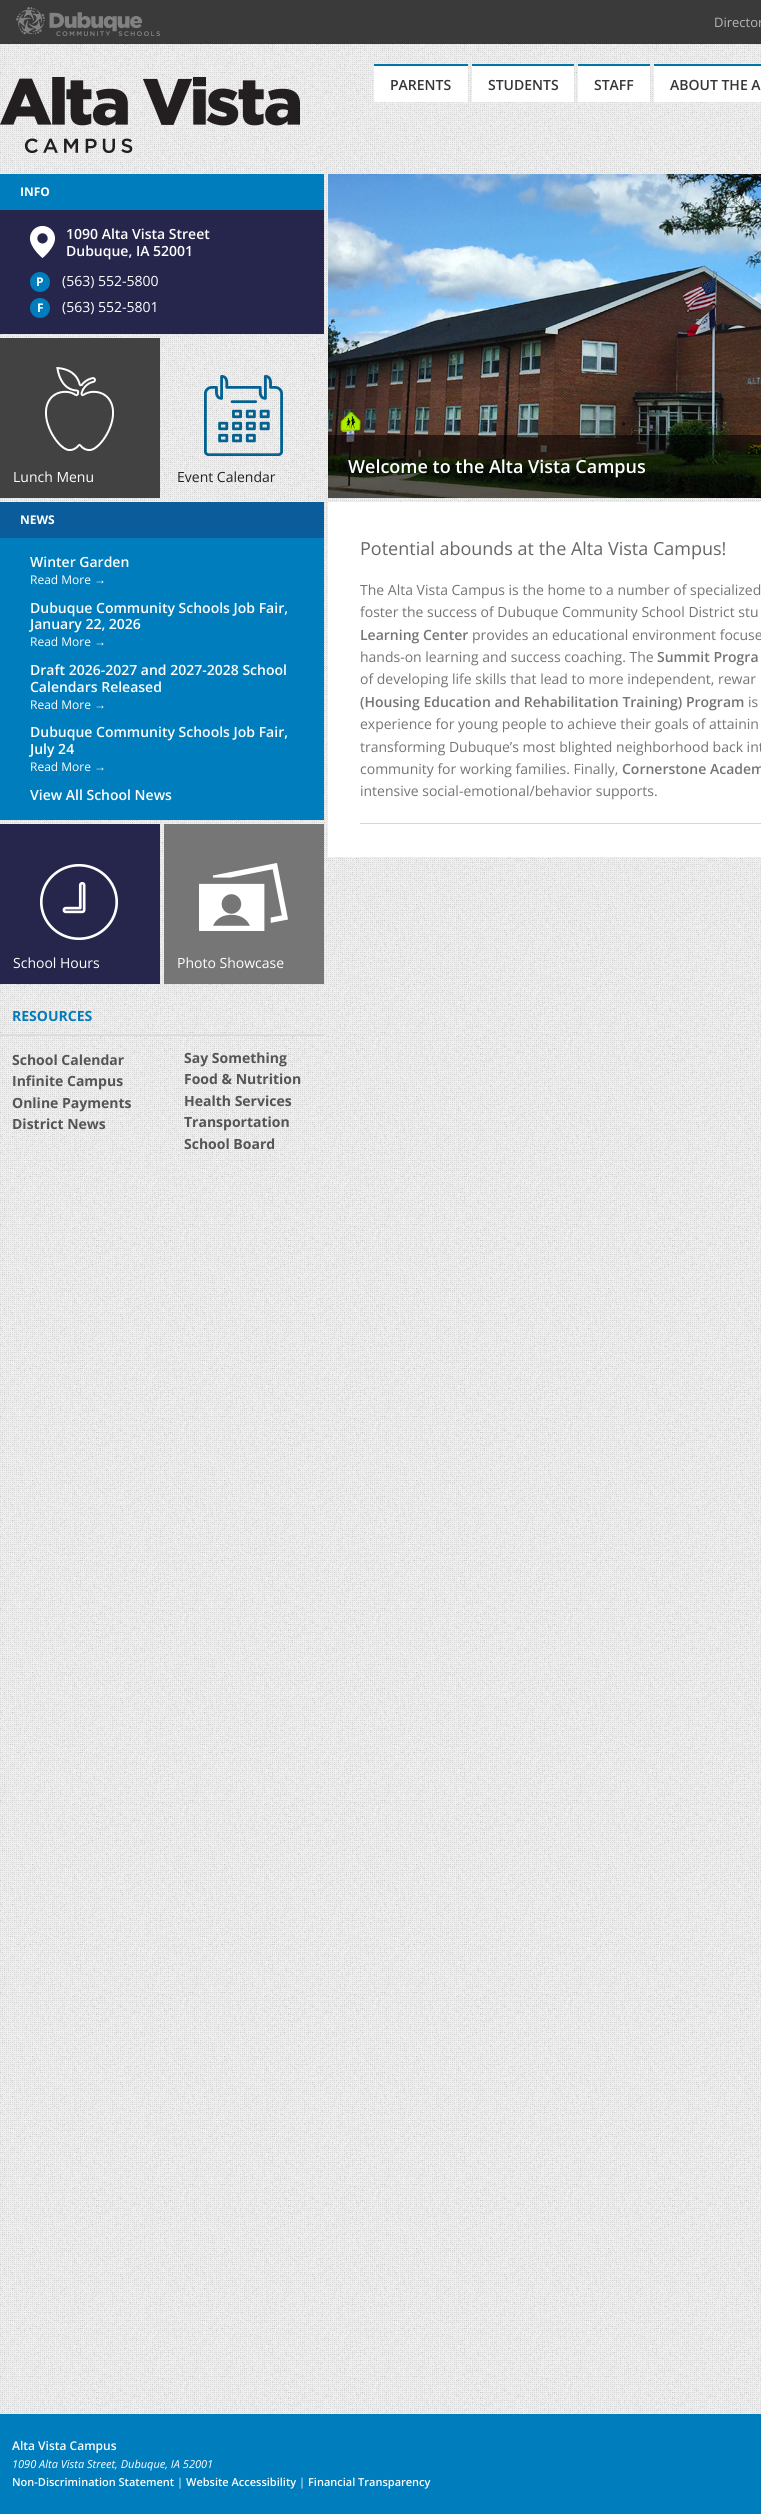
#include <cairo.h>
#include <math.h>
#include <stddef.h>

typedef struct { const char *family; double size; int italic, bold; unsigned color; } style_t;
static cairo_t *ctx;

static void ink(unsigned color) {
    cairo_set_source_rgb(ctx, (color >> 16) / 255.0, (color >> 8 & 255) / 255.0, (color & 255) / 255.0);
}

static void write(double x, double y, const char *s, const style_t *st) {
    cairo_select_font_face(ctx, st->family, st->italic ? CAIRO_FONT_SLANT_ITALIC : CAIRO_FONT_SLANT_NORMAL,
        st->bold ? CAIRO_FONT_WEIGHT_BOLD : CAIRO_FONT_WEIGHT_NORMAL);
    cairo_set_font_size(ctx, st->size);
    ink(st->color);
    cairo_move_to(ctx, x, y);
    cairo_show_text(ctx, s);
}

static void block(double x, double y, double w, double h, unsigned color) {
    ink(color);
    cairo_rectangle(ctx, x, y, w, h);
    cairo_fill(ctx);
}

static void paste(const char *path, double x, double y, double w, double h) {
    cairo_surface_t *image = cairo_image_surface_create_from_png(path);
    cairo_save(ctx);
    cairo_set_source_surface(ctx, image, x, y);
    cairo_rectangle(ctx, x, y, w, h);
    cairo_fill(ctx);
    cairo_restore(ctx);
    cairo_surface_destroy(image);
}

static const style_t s1 = {"Open Sans", 13, 0, 0, 0xb7b7b7};
static const style_t s2 = {"Open Sans SemiBold", 14, 0, 0, 0x363636};
static const style_t s3 = {"Open Sans", 12, 0, 1, 0xffffff};
static const style_t s4 = {"Open Sans SemiBold", 14, 0, 0, 0xffffff};
static const style_t s5 = {"Open Sans", 14, 0, 0, 0xffffff};
static const style_t s6 = {"Open Sans", 14, 0, 0, 0x222222};
static const style_t s7 = {"Open Sans", 12, 0, 0, 0xffffff};
static const style_t s8 = {"Liberation Sans", 12, 0, 0, 0xffffff};
static const style_t s9 = {"Open Sans", 14, 0, 1, 0x007dbc};
static const style_t s10 = {"Open Sans", 14, 0, 1, 0x555555};
static const style_t s11 = {"Open Sans SemiBold", 18, 0, 0, 0xffffff};
static const style_t s12 = {"Open Sans", 18, 0, 0, 0x666666};
static const style_t s13 = {"Open Sans", 14, 0, 0, 0x747474};
static const style_t s14 = {"Open Sans SemiBold", 14, 0, 0, 0x747474};
static const style_t s15 = {"Open Sans SemiBold", 12, 0, 0, 0xffffff};
static const style_t s16 = {"Open Sans", 11, 1, 0, 0xffffff};
static const style_t s17 = {"Open Sans SemiBold", 11, 0, 0, 0xffffff};
static const style_t s18 = {"Open Sans", 11, 0, 0, 0xffffff};

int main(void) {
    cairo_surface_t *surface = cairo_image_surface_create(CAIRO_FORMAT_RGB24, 761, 2514);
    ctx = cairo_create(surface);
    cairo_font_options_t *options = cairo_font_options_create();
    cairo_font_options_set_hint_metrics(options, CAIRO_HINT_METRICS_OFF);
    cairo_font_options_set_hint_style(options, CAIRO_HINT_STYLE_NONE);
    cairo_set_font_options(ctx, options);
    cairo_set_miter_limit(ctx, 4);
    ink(0xffffff);
    cairo_paint(ctx);
    paste("pic1.png", 0, 44, 761, 2370);
    block(0, 0, 761, 44, 0x3a3a3a);
    paste("pic2.png", 16, 7, 144, 29);
    write(714, 27, "Director", &s1);
    paste("pic3.png", 0, 77, 300, 76);
    block(374, 66, 94, 36, 0xffffff);
    block(374, 64, 94, 2, 0x0075aa);
    write(390, 90, "PARENTS", &s2);
    block(472, 66, 102, 36, 0xffffff);
    block(472, 64, 102, 2, 0x0075aa);
    write(488, 90, "STUDENTS", &s2);
    block(578, 66, 72, 36, 0xffffff);
    block(578, 64, 72, 2, 0x0075aa);
    write(594, 90, "STAFF", &s2);
    block(654, 66, 107, 36, 0xffffff);
    block(654, 64, 107, 2, 0x0075aa);
    write(670, 90, "ABOUT THE A", &s2);
    block(0, 210, 324, 124, 0x26264d);
    block(0, 174, 324, 36, 0x007dbc);
    write(20, 196, "INFO", &s3);
    paste("pic4.png", 30, 226, 25, 32);
    write(66, 239, "1090 Alta Vista Street", &s4);
    write(66, 256, "Dubuque, IA 52001", &s4);
    ink(0x007dbc);
    cairo_new_path(ctx);
    cairo_arc(ctx, 40, 282, 10, 0, 2 * M_PI);
    cairo_fill(ctx);
    write(36, 286, "P", &s3);
    write(62, 286, "(563) 552-5800", &s5);
    ink(0x007dbc);
    cairo_new_path(ctx);
    cairo_arc(ctx, 40, 308, 10, 0, 2 * M_PI);
    cairo_fill(ctx);
    write(37, 312, "F", &s3);
    write(62, 312, "(563) 552-5801", &s5);
    block(0, 338, 160, 160, 0x424242);
    paste("pic5.png", 45, 367, 69, 84);
    write(13, 482, "Lunch Menu", &s5);
    paste("pic6.png", 204, 375, 79, 81);
    write(177, 482, "Event Calendar", &s6);
    block(0, 538, 324, 282, 0x007dbc);
    block(0, 502, 324, 36, 0x0b5c9a);
    write(20, 524, "NEWS", &s3);
    write(30, 567, "Winter Garden", &s4);
    write(30, 584, "Read More", &s7);
    write(94, 584, "→", &s8);
    write(30, 613, "Dubuque Community Schools Job Fair,", &s4);
    write(30, 629, "January 22, 2026", &s4);
    write(30, 646, "Read More", &s7);
    write(94, 646, "→", &s8);
    write(30, 675, "Draft 2026-2027 and 2027-2028 School", &s4);
    write(30, 692, "Calendars Released", &s4);
    write(30, 709, "Read More", &s7);
    write(94, 709, "→", &s8);
    write(30, 737, "Dubuque Community Schools Job Fair,", &s4);
    write(30, 754, "July 24", &s4);
    write(30, 771, "Read More", &s7);
    write(94, 771, "→", &s8);
    write(30, 800, "View All School News", &s4);
    block(0, 824, 160, 160, 0x26264d);
    paste("pic7.png", 40, 864, 78, 76);
    write(13, 968, "School Hours", &s5);
    block(164, 824, 160, 160, 0x767676);
    paste("pic8.png", 199, 863, 89, 68);
    write(177, 968, "Photo Showcase", &s5);
    block(0, 1034, 324, 2, 0xdddddd);
    write(12, 1021, "RESOURCES", &s9);
    write(12, 1065, "School Calendar", &s10);
    write(184, 1063, "Say Something", &s10);
    write(12, 1086, "Infinite Campus", &s10);
    write(184, 1084, "Food & Nutrition", &s10);
    write(12, 1108, "Online Payments", &s10);
    write(184, 1106, "Health Services", &s10);
    write(12, 1129, "District News", &s10);
    write(184, 1127, "Transportation", &s10);
    write(184, 1149, "School Board", &s10);
    paste("pic9.png", 328, 174, 433, 324);
    cairo_set_source_rgba(ctx, 0, 0, 0, 0.55);
    cairo_rectangle(ctx, 328, 435, 433, 63);
    cairo_fill(ctx);
    write(348, 473, "Welcome to the Alta Vista Campus", &s11);
    block(328, 502, 433, 355, 0xffffff);
    write(360, 555, "Potential abounds at the Alta Vista Campus!", &s12);
    write(360, 595, "The Alta Vista Campus is the home to a number of specialized", &s13);
    write(360, 617, "foster the success of Dubuque Community School District stu", &s13);
    write(360, 640, "Learning Center", &s14);
    write(472, 640, "provides an educational environment focuse", &s13);
    write(360, 662, "hands-on learning and success coaching. The", &s13);
    write(657, 662, "Summit Progra", &s14);
    write(360, 684, "of developing life skills that lead to more independent, rewar", &s13);
    write(360, 707, "(Housing Education and Rehabilitation Training) Program", &s14);
    write(748, 707, "is", &s13);
    write(360, 729, "experience for young people to achieve their goals of attainin", &s13);
    write(360, 752, "transforming Dubuque’s most blighted neighborhood back int", &s13);
    write(360, 774, "community for working families. Finally,", &s13);
    write(622, 774, "Cornerstone Academ", &s14);
    write(360, 796, "intensive social-emotional/behavior supports.", &s13);
    block(360, 823, 401, 1, 0xd7d7d7);
    block(0, 2414, 761, 100, 0x007dbc);
    write(12, 2450, "Alta Vista Campus", &s15);
    write(12, 2468, "1090 Alta Vista Street, Dubuque, IA 52001", &s16);
    write(12, 2486, "Non-Discrimination Statement", &s17);
    write(177, 2486, "|", &s18);
    write(186, 2486, "Website Accessibility", &s17);
    write(299, 2486, "|", &s18);
    write(308, 2486, "Financial Transparency", &s17);
    cairo_surface_write_to_png(surface, "screenshot.png");
    cairo_font_options_destroy(options);
    cairo_destroy(ctx);
    cairo_surface_destroy(surface);
    return 0;
}
